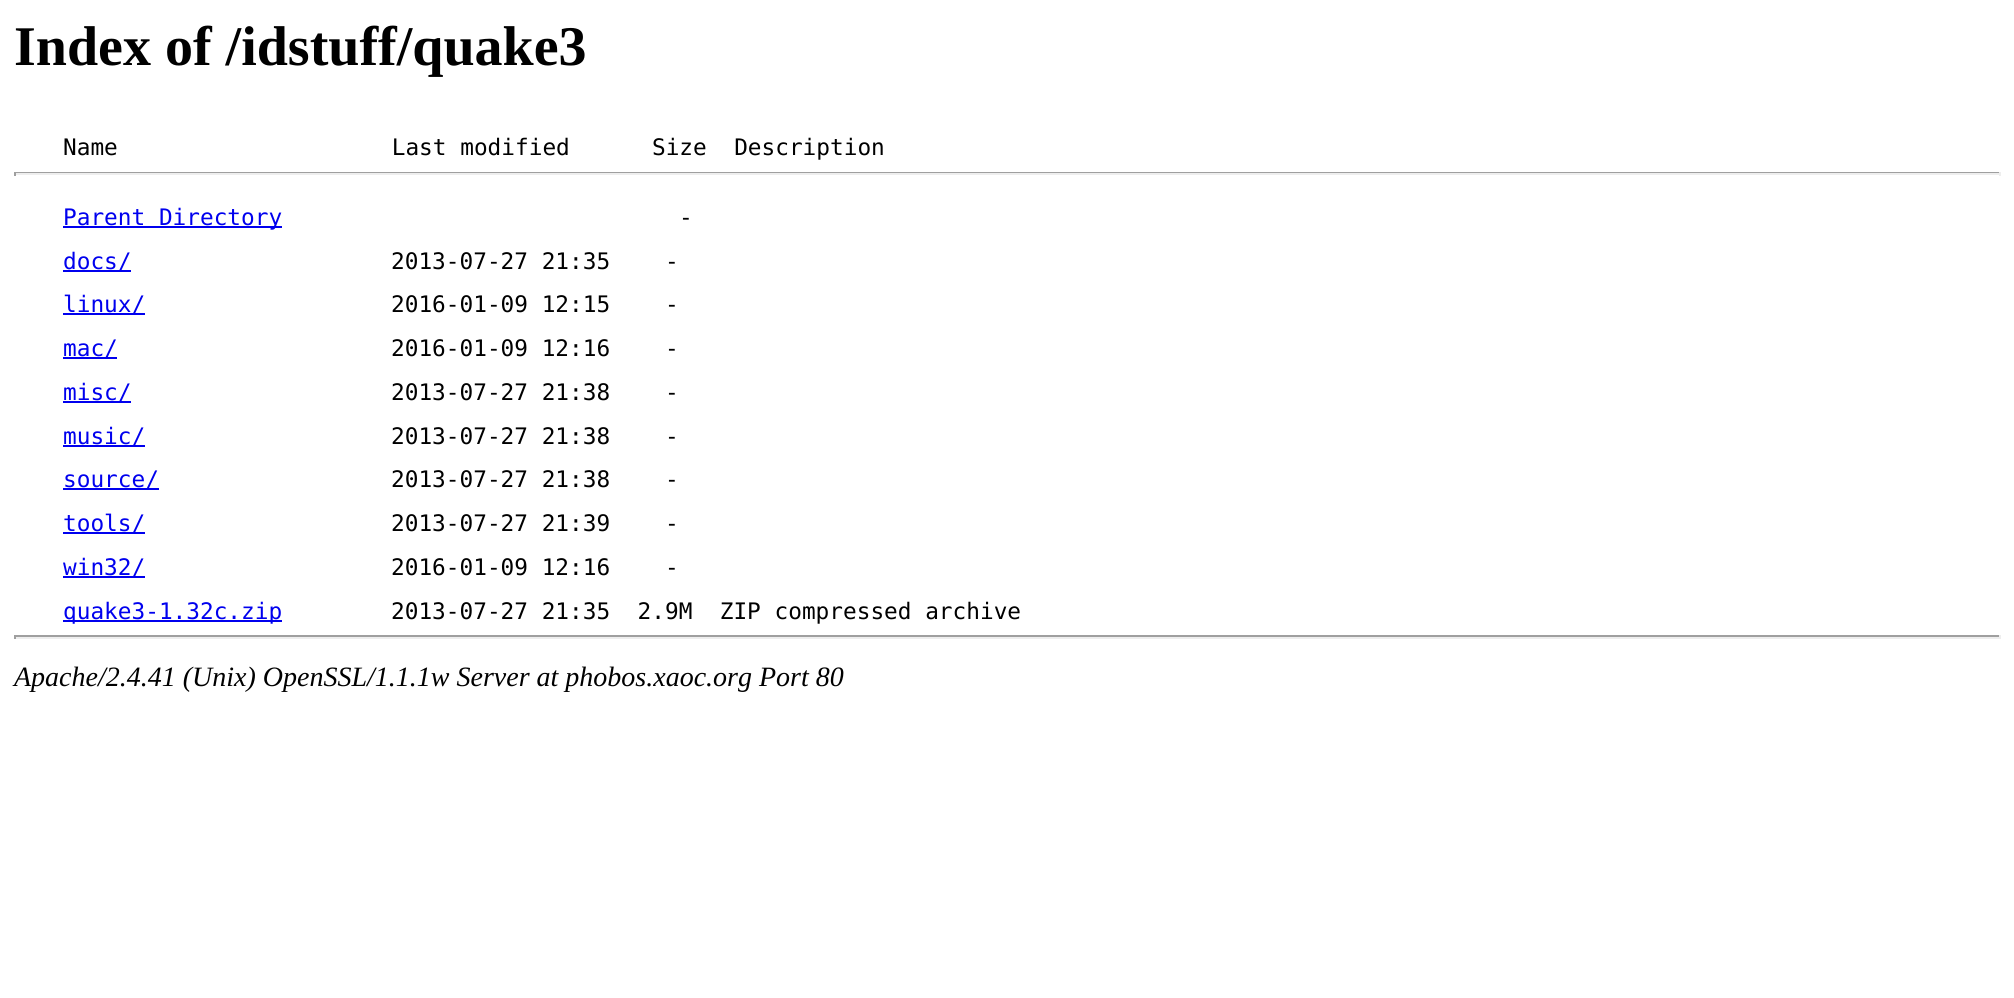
#include <cairo.h>
#include <math.h>
#include <stddef.h>

typedef struct { const char *family; double size; int italic, bold; unsigned color; } style_t;
static cairo_t *ctx;

static void ink(unsigned color) {
    cairo_set_source_rgb(ctx, (color >> 16) / 255.0, (color >> 8 & 255) / 255.0, (color & 255) / 255.0);
}

static void write(double x, double y, const char *s, const style_t *st) {
    cairo_select_font_face(ctx, st->family, st->italic ? CAIRO_FONT_SLANT_ITALIC : CAIRO_FONT_SLANT_NORMAL,
        st->bold ? CAIRO_FONT_WEIGHT_BOLD : CAIRO_FONT_WEIGHT_NORMAL);
    cairo_set_font_size(ctx, st->size);
    ink(st->color);
    cairo_move_to(ctx, x, y);
    cairo_show_text(ctx, s);
}

static void block(double x, double y, double w, double h, unsigned color) {
    ink(color);
    cairo_rectangle(ctx, x, y, w, h);
    cairo_fill(ctx);
}

static const style_t s1 = {"Liberation Serif", 56, 0, 1, 0x000000};
static const style_t s2 = {"DejaVu Sans Mono", 22.75, 0, 0, 0x000000};
static const style_t s3 = {"DejaVu Sans Mono", 22.75, 0, 0, 0x0000ee};
static const style_t s4 = {"Liberation Serif", 28, 1, 0, 0x000000};

int main(void) {
    cairo_surface_t *surface = cairo_image_surface_create(CAIRO_FORMAT_RGB24, 2014, 998);
    ctx = cairo_create(surface);
    cairo_font_options_t *options = cairo_font_options_create();
    cairo_font_options_set_hint_metrics(options, CAIRO_HINT_METRICS_OFF);
    cairo_font_options_set_hint_style(options, CAIRO_HINT_STYLE_NONE);
    cairo_set_font_options(ctx, options);
    cairo_set_miter_limit(ctx, 4);
    ink(0xffffff);
    cairo_paint(ctx);
    write(14, 65, "Index of /idstuff/quake3", &s1);
    write(63, 155, "Name                    Last modified      Size  Description", &s2);
    block(14, 172, 1986, 1, 0x9f9f9f);
    block(1999, 172, 2, 4, 0xeeeeee);
    block(14, 173, 1986, 2, 0xeeeeee);
    block(14, 172, 2, 4, 0x9f9f9f);
    block(63, 226, 219, 2, 0x0000ee);
    write(63, 225, "Parent Directory", &s3);
    write(679, 225, "-", &s2);
    block(63, 270, 68, 2, 0x0000ee);
    write(63, 269, "docs/", &s3);
    write(391, 269, "2013-07-27 21:35    -", &s2);
    block(63, 313, 82, 2, 0x0000ee);
    write(63, 312, "linux/", &s3);
    write(391, 312, "2016-01-09 12:15    -", &s2);
    block(63, 357, 54, 2, 0x0000ee);
    write(63, 356, "mac/", &s3);
    write(391, 356, "2016-01-09 12:16    -", &s2);
    block(63, 401, 68, 2, 0x0000ee);
    write(63, 400, "misc/", &s3);
    write(391, 400, "2013-07-27 21:38    -", &s2);
    block(63, 445, 82, 2, 0x0000ee);
    write(63, 444, "music/", &s3);
    write(391, 444, "2013-07-27 21:38    -", &s2);
    block(63, 488, 96, 2, 0x0000ee);
    write(63, 487, "source/", &s3);
    write(391, 487, "2013-07-27 21:38    -", &s2);
    block(63, 532, 82, 2, 0x0000ee);
    write(63, 531, "tools/", &s3);
    write(391, 531, "2013-07-27 21:39    -", &s2);
    block(63, 576, 82, 2, 0x0000ee);
    write(63, 575, "win32/", &s3);
    write(391, 575, "2016-01-09 12:16    -", &s2);
    block(63, 620, 219, 2, 0x0000ee);
    write(63, 619, "quake3-1.32c.zip", &s3);
    write(391, 619, "2013-07-27 21:35  2.9M  ZIP compressed archive", &s2);
    block(14, 635, 1986, 2, 0x9f9f9f);
    block(1999, 635, 2, 4, 0xeeeeee);
    block(14, 637, 1986, 2, 0xeeeeee);
    block(14, 635, 2, 4, 0x9f9f9f);
    write(14, 686, "Apache/2.4.41 (Unix) OpenSSL/1.1.1w Server at phobos.xaoc.org Port 80", &s4);
    cairo_surface_write_to_png(surface, "screenshot.png");
    cairo_font_options_destroy(options);
    cairo_destroy(ctx);
    cairo_surface_destroy(surface);
    return 0;
}
